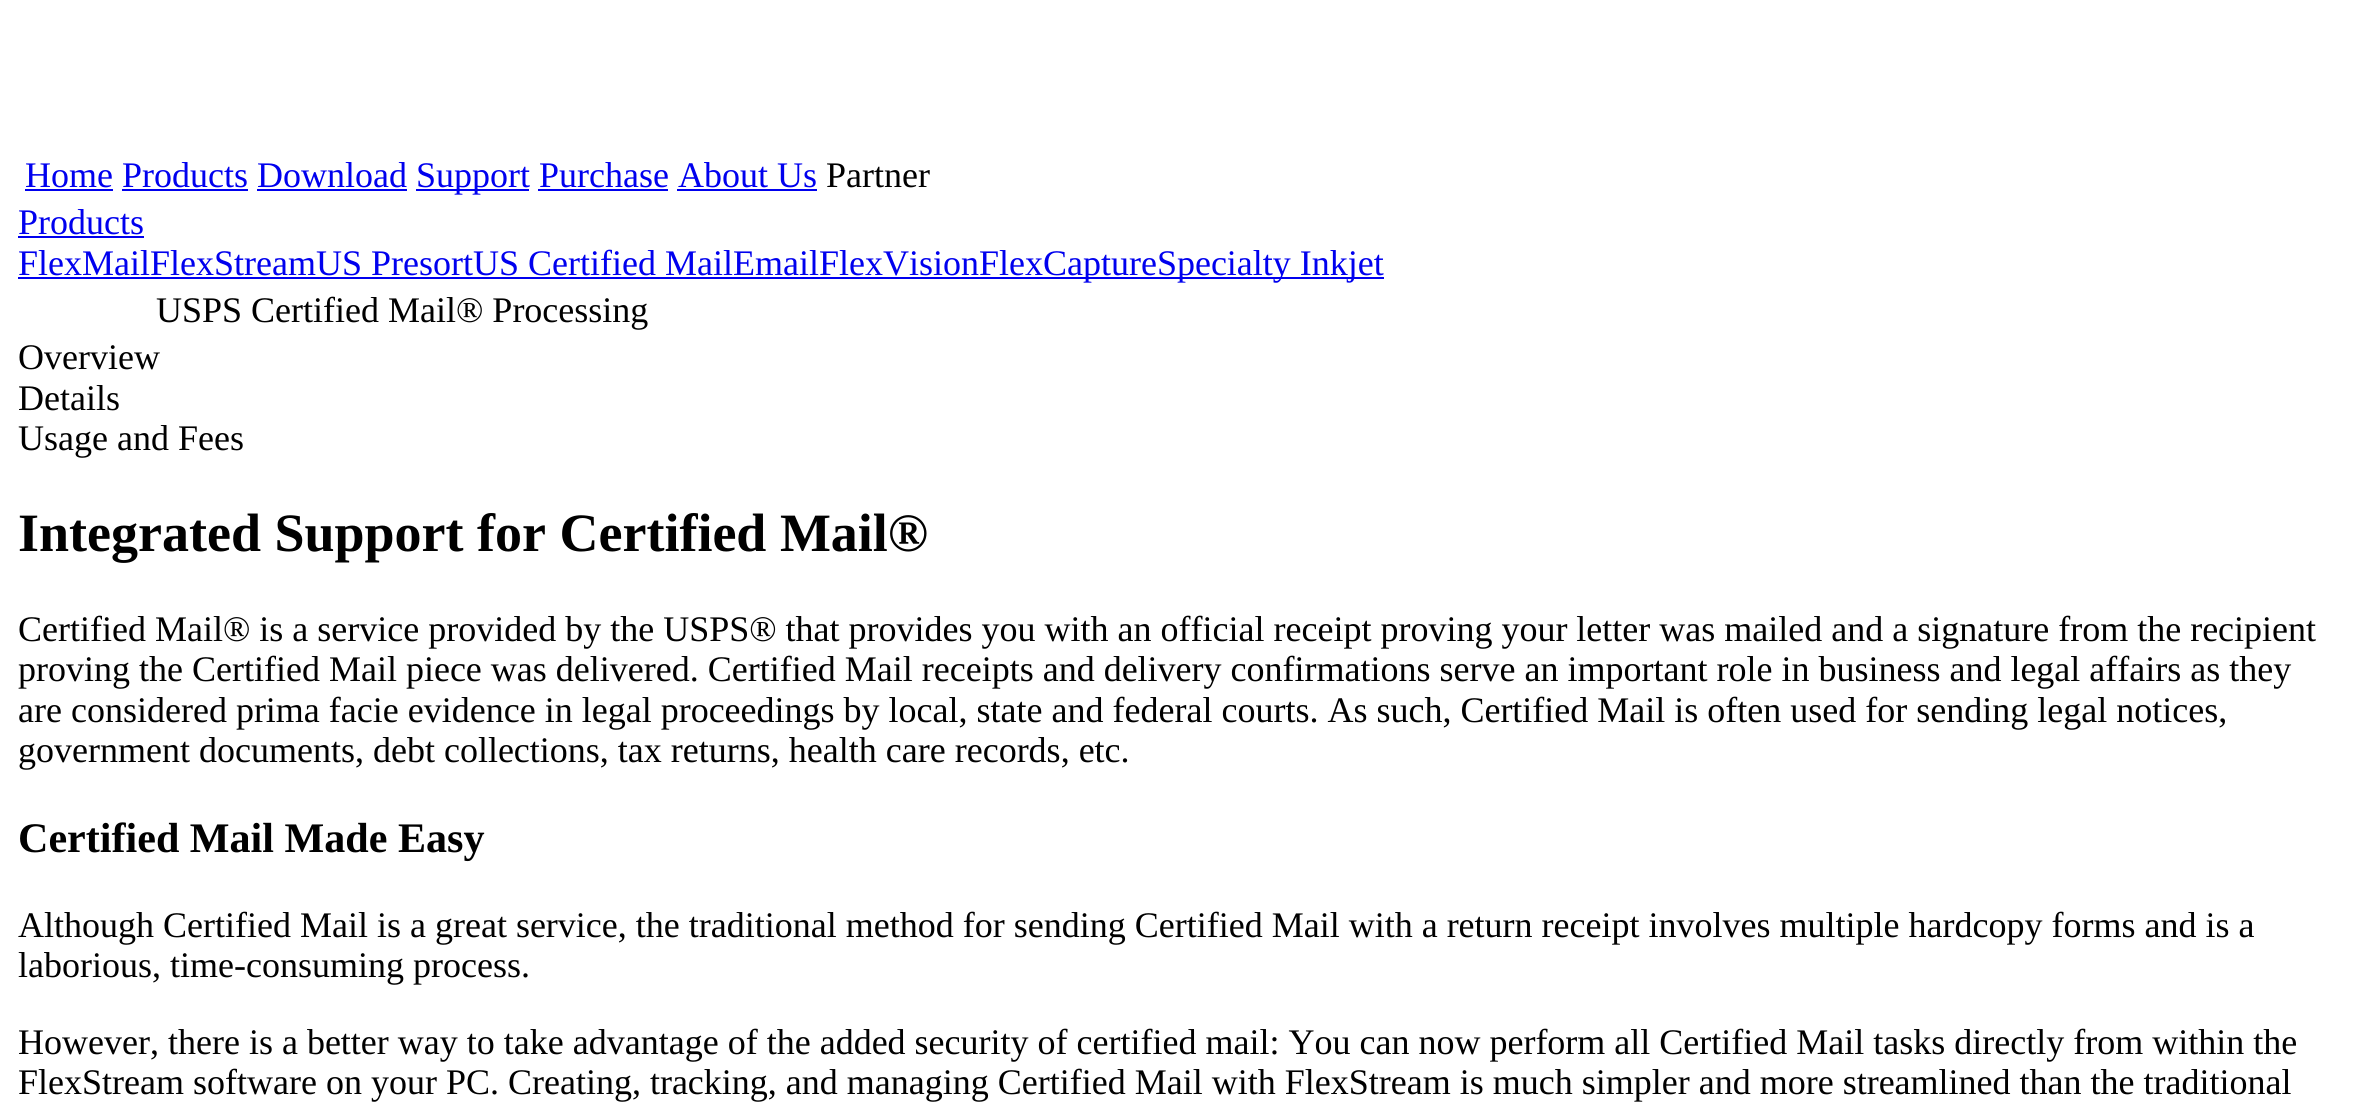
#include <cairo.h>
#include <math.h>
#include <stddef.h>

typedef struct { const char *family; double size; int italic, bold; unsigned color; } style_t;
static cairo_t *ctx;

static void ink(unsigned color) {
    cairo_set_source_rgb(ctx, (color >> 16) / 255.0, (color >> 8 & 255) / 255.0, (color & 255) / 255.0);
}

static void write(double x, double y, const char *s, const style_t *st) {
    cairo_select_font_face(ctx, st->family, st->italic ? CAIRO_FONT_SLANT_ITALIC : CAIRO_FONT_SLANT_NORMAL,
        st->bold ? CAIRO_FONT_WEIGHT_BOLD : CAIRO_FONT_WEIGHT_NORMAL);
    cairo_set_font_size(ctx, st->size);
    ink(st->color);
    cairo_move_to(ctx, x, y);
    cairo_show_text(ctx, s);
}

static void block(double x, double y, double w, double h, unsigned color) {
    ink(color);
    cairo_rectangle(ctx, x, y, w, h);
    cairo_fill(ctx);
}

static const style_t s1 = {"Liberation Serif", 36, 0, 0, 0x0000ee};
static const style_t s2 = {"Liberation Serif", 36, 0, 0, 0x000000};
static const style_t s3 = {"Liberation Serif", 54, 0, 1, 0x000000};
static const style_t s4 = {"Liberation Serif", 42.1, 0, 1, 0x000000};

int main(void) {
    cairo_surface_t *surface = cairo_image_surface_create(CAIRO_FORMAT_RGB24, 2360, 1118);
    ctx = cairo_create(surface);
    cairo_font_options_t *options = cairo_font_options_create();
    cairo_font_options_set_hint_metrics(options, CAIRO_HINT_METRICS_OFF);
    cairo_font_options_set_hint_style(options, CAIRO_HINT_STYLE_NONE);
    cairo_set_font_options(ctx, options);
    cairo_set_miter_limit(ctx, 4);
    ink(0xffffff);
    cairo_paint(ctx);
    write(25, 187, "Home Products Download", &s1);
    block(25, 189, 88, 2, 0x0000ee);
    block(416, 189, 113, 2, 0x0000ee);
    write(416, 187, "Support Purchase About Us", &s1);
    write(826, 187, "Partner", &s2);
    block(122, 189, 126, 2, 0x0000ee);
    block(257, 189, 150, 2, 0x0000ee);
    block(538, 189, 130, 2, 0x0000ee);
    block(677, 189, 140, 2, 0x0000ee);
    write(18, 234, "Products", &s1);
    block(18, 236, 126, 2, 0x0000ee);
    block(18, 277, 1366, 2, 0x0000ee);
    write(18, 275, "FlexMailFlexStreamUS PresortUS Certified MailEmailFlexVisionFlexCaptureSpecialty Inkjet", &s1);
    write(156, 322, "USPS Certified Mail® Processing", &s2);
    write(18, 369, "Overview", &s2);
    write(18, 410, "Details", &s2);
    write(18, 450, "Usage and Fees", &s2);
    write(18, 551, "Integrated Support for Certified Mail®", &s3);
    write(18, 641, "Certified Mail® is a service provided by the USPS® that provides you with an official receipt proving your letter was mailed and a signature from the recipient", &s2);
    write(18, 681, "proving the Certified Mail piece was delivered. Certified Mail receipts and delivery confirmations serve an important role in business and legal affairs as they", &s2);
    write(18, 722, "are considered prima facie evidence in legal proceedings by local, state and federal courts. As such, Certified Mail is often used for sending legal notices,", &s2);
    write(18, 762, "government documents, debt collections, tax returns, health care records, etc.", &s2);
    write(18, 852, "Certified Mail Made Easy", &s4);
    write(18, 937, "Although Certified Mail is a great service, the traditional method for sending Certified Mail with a return receipt involves multiple hardcopy forms and is a", &s2);
    write(18, 977, "laborious, time-consuming process.", &s2);
    write(18, 1054, "However, there is a better way to take advantage of the added security of certified mail: You can now perform all Certified Mail tasks directly from within the", &s2);
    write(18, 1094, "FlexStream software on your PC. Creating, tracking, and managing Certified Mail with FlexStream is much simpler and more streamlined than the traditional", &s2);
    cairo_surface_write_to_png(surface, "screenshot.png");
    cairo_font_options_destroy(options);
    cairo_destroy(ctx);
    cairo_surface_destroy(surface);
    return 0;
}
